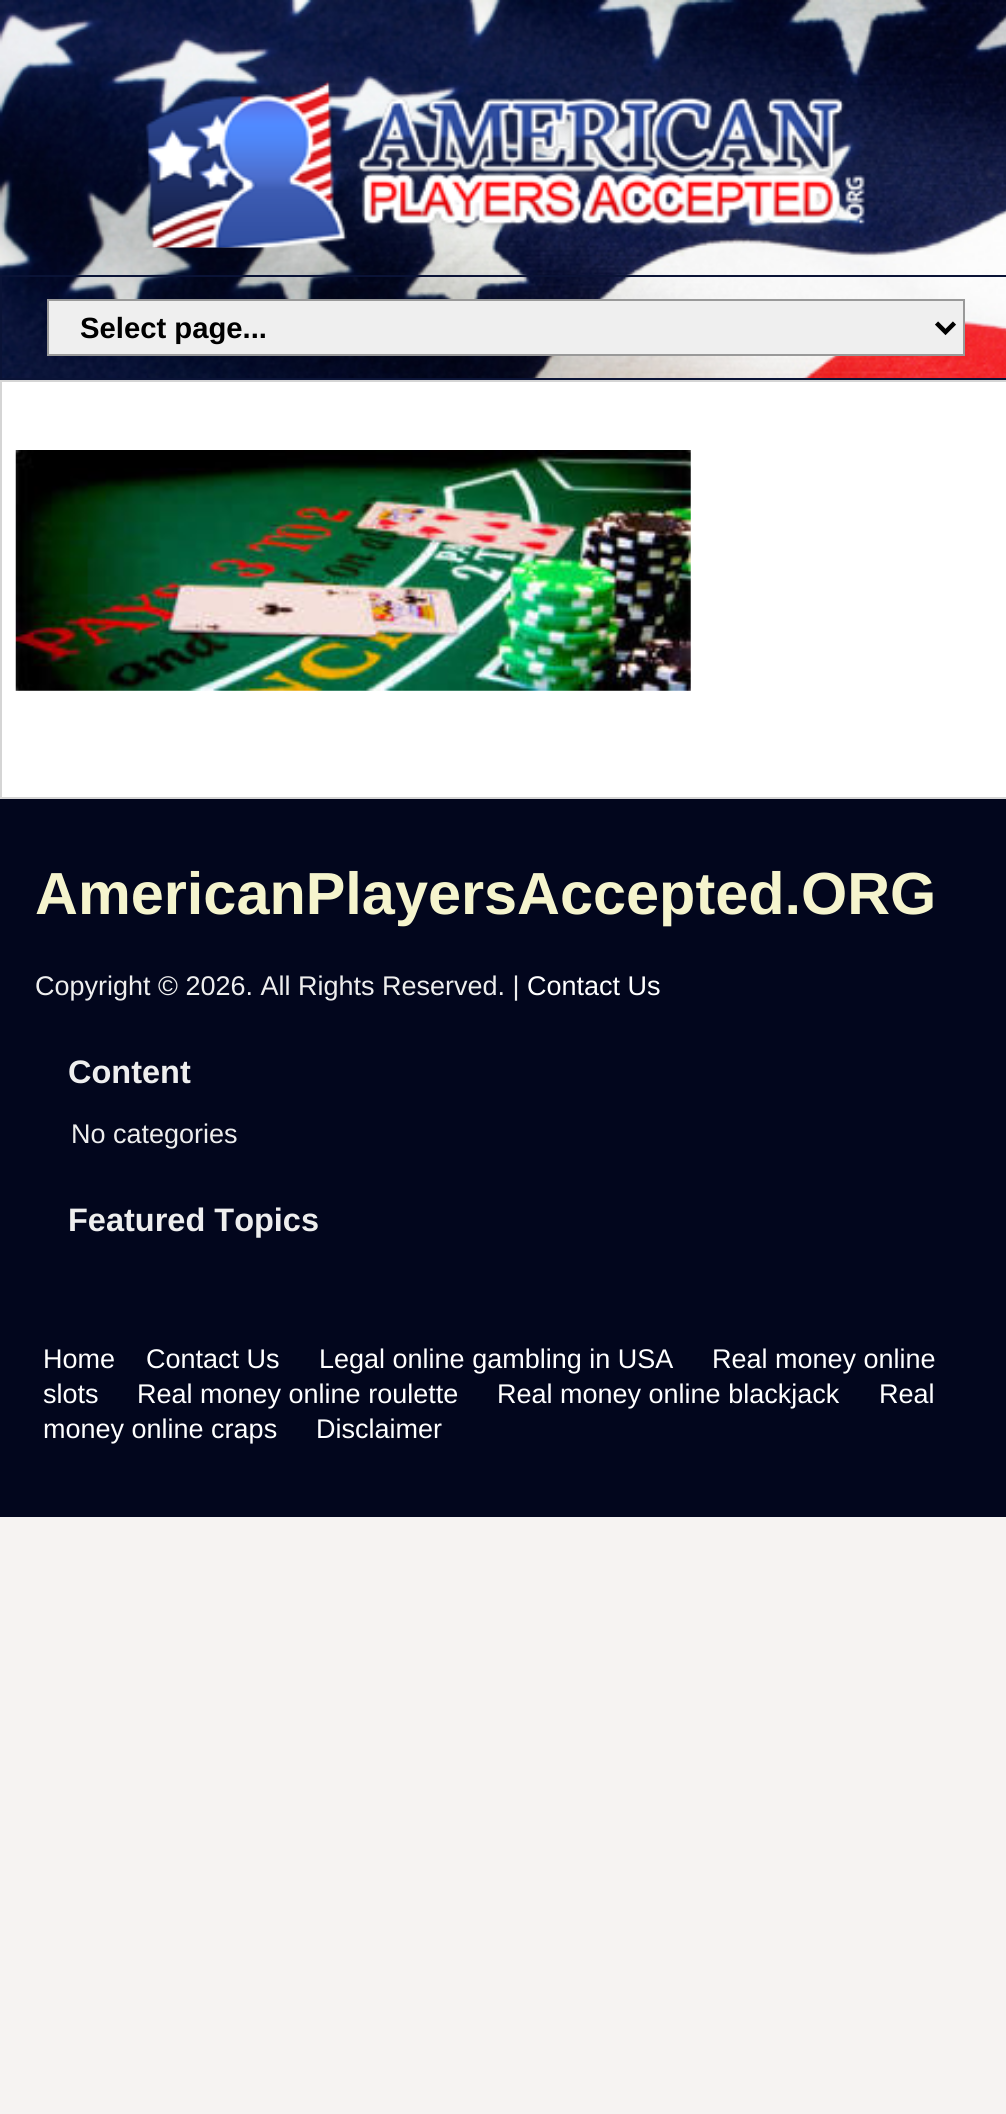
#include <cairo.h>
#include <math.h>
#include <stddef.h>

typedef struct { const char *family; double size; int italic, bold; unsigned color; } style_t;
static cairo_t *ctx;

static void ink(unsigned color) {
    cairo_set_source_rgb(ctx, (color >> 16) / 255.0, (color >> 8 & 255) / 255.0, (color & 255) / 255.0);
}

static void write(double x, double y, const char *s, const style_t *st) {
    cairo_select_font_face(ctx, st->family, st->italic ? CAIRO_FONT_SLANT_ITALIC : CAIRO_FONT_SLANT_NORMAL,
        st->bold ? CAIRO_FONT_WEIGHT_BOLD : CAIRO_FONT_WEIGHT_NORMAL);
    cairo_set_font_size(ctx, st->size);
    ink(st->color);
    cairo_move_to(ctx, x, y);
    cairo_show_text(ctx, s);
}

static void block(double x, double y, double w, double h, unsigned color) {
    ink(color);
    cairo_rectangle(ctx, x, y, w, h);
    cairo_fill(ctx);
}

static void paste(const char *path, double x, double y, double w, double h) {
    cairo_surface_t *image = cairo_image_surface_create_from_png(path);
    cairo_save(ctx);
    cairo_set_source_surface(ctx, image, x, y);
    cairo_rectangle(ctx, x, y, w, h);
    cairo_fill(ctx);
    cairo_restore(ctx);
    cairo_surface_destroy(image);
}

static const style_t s1 = {"Liberation Sans", 29.25, 0, 1, 0x000000};
static const style_t s2 = {"Liberation Sans", 59.4, 0, 1, 0xf5f4cd};
static const style_t s3 = {"Liberation Sans", 27, 0, 0, 0xeeeeee};
static const style_t s4 = {"Liberation Sans", 27, 0, 0, 0xffffff};
static const style_t s5 = {"Liberation Sans", 32.5, 0, 1, 0xeeeeee};

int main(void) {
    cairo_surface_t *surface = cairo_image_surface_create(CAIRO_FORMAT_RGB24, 1006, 2114);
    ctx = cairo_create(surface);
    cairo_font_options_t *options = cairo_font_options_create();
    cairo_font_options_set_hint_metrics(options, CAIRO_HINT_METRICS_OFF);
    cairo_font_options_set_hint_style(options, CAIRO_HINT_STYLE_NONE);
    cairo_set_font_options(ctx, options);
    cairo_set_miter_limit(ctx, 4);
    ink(0xf6f3f2);
    cairo_paint(ctx);
    paste("pic1.png", 0, 0, 1006, 378);
    paste("pic2.png", 145, 80, 720, 168);
    cairo_rectangle(ctx, 1, 276, 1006, 103);
    ink(0x0a1336);
    cairo_stroke(ctx);
    ink(0xefefef);
    cairo_rectangle(ctx, 48, 300, 916, 55);
    cairo_fill_preserve(ctx);
    ink(0x999999);
    cairo_stroke(ctx);
    cairo_new_path(ctx);
    cairo_move_to(ctx, 936.5, 323);
    cairo_line_to(ctx, 945.5, 332);
    cairo_line_to(ctx, 954.5, 323);
    ink(0x000000);
    cairo_set_line_width(ctx, 4.5);
    cairo_stroke(ctx);
    write(80, 338, "Select page...", &s1);
    ink(0xffffff);
    cairo_rectangle(ctx, 1, 381, 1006, 417);
    cairo_fill_preserve(ctx);
    ink(0xd5d5d5);
    cairo_set_line_width(ctx, 2);
    cairo_stroke(ctx);
    paste("pic3.png", 15, 450, 676, 241);
    block(0, 799, 1006, 718, 0x02061d);
    write(35, 914, "AmericanPlayersAccepted.ORG", &s2);
    write(35, 995, "Copyright © 2026. All Rights Reserved. |", &s3);
    write(527, 995, "Contact Us", &s4);
    write(68, 1083, "Content", &s5);
    write(71, 1143, "No categories", &s3);
    write(68, 1231, "Featured Topics", &s5);
    write(43, 1368, "Home", &s4);
    write(146, 1368, "Contact Us", &s4);
    write(319, 1368, "Legal online gambling in USA", &s4);
    write(712, 1368, "Real money online", &s4);
    write(43, 1403, "slots", &s4);
    write(137, 1403, "Real money online roulette", &s4);
    write(497, 1403, "Real money online blackjack", &s4);
    write(879, 1403, "Real", &s4);
    write(43, 1438, "money online craps", &s4);
    write(316, 1438, "Disclaimer", &s4);
    cairo_surface_write_to_png(surface, "screenshot.png");
    cairo_font_options_destroy(options);
    cairo_destroy(ctx);
    cairo_surface_destroy(surface);
    return 0;
}
